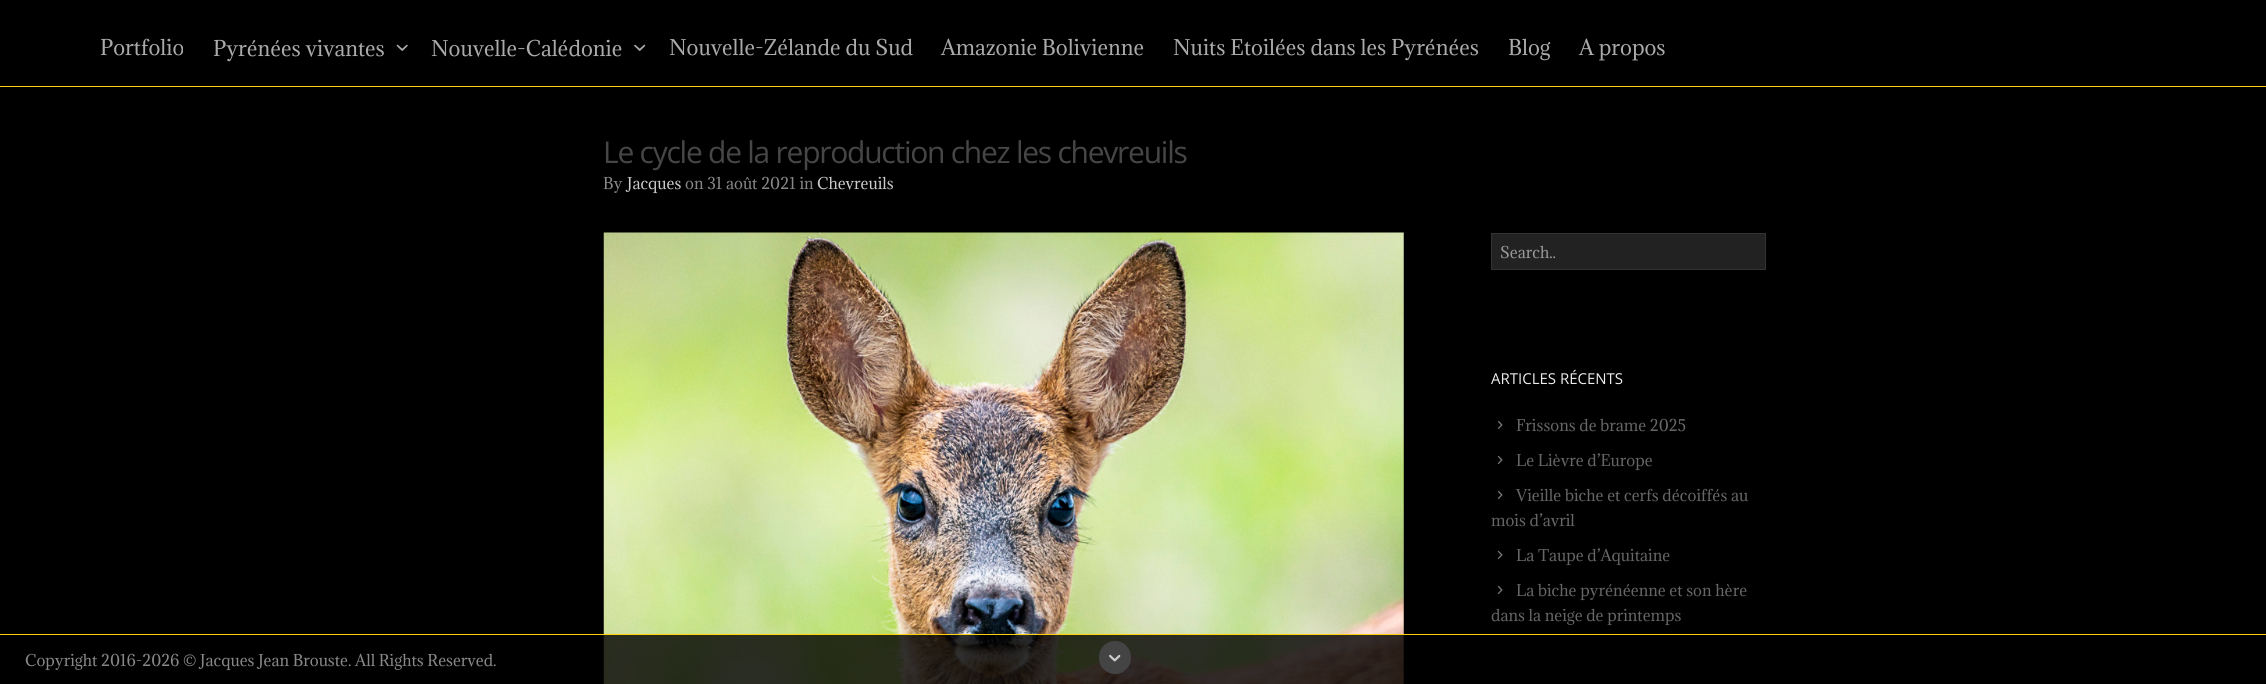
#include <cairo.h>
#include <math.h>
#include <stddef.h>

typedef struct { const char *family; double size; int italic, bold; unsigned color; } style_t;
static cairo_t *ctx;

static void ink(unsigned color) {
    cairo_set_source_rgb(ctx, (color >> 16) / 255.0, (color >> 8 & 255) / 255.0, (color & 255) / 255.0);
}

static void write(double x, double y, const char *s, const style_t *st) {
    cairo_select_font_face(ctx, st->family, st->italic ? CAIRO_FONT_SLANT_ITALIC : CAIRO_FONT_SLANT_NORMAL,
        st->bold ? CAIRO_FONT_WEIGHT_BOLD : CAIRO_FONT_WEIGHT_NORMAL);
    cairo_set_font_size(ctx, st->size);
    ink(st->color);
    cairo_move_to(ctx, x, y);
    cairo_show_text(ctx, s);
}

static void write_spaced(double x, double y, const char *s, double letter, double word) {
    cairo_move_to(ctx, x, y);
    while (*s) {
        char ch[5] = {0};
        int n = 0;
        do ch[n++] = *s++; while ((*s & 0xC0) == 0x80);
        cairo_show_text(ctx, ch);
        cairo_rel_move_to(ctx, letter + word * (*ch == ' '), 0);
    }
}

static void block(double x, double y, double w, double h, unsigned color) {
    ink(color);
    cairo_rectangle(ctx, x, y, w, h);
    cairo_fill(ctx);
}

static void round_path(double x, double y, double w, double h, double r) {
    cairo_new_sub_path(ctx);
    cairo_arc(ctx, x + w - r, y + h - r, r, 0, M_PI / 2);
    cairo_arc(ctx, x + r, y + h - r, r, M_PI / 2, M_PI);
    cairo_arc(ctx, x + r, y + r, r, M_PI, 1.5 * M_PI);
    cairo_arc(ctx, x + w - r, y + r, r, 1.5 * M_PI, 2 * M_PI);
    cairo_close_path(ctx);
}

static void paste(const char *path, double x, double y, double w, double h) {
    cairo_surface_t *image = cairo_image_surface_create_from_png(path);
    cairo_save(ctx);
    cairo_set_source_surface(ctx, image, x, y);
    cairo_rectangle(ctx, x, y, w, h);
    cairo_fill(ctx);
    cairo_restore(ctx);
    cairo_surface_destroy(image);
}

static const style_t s1 = {"Adamina", 20, 0, 0, 0xaaaaaa};
static const style_t s2 = {"Adamina", 15, 0, 0, 0x888888};
static const style_t s3 = {"Adamina", 15, 0, 0, 0xcccccc};
static const style_t s4 = {"Adamina", 15, 0, 0, 0x999999};
static const style_t s5 = {"Open Sans", 15, 0, 0, 0xeeeeee};
static const style_t s6 = {"Adamina", 15, 0, 0, 0x666666};

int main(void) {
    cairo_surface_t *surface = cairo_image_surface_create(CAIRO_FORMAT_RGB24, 2266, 684);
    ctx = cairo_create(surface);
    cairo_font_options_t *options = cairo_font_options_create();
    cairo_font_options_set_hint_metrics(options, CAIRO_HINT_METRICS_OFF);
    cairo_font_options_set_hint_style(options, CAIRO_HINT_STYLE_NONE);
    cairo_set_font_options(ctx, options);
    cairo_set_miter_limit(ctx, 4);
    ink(0x000000);
    cairo_paint(ctx);
    block(0, 86, 2266, 1, 0xfed108);
    write(100, 55, "Portfolio", &s1);
    write(213, 56, "Pyrénées vivantes", &s1);
    paste("pic1.png", 396, 44, 12, 7);
    write(431, 56, "Nouvelle-Calédonie", &s1);
    paste("pic2.png", 634, 44, 12, 7);
    write(669, 55, "Nouvelle-Zélande du Sud", &s1);
    write(941, 55, "Amazonie Bolivienne", &s1);
    write(1173, 55, "Nuits Etoilées dans les Pyrénées", &s1);
    write(1508, 55, "Blog", &s1);
    write(1579, 55, "A propos", &s1);
    cairo_select_font_face(ctx, "Open Sans", CAIRO_FONT_SLANT_NORMAL, CAIRO_FONT_WEIGHT_NORMAL);
    cairo_set_font_size(ctx, 30);
    ink(0x464646);
    write_spaced(603, 163, "Le cycle de la reproduction chez les chevreuils", -1.25, 0);
    write(603, 189, "By", &s2);
    write(627, 189, "Jacques", &s3);
    write(685, 189, "on 31 août 2021 in", &s2);
    write(817, 189, "Chevreuils", &s3);
    paste("pic3.png", 603, 232, 801, 452);
    ink(0x222222);
    cairo_rectangle(ctx, 1491.5, 233.5, 274, 36);
    cairo_fill_preserve(ctx);
    ink(0x333333);
    cairo_set_line_width(ctx, 1);
    cairo_stroke(ctx);
    write(1500, 258, "Search..", &s4);
    write(1491, 384, "ARTICLES RÉCENTS", &s5);
    paste("pic4.png", 1497, 420, 6, 9);
    write(1516, 431, "Frissons de brame 2025", &s6);
    paste("pic4.png", 1497, 455, 6, 9);
    write(1516, 466, "Le Lièvre d’Europe", &s6);
    paste("pic4.png", 1497, 490, 6, 9);
    write(1516, 501, "Vieille biche et cerfs décoiffés au", &s6);
    write(1491, 526, "mois d’avril", &s6);
    paste("pic4.png", 1497, 550, 6, 9);
    write(1516, 561, "La Taupe d’Aquitaine", &s6);
    paste("pic4.png", 1497, 585, 6, 9);
    write(1516, 596, "La biche pyrénéenne et son hère", &s6);
    write(1491, 621, "dans la neige de printemps", &s6);
    cairo_set_source_rgba(ctx, 0, 0, 0, 0.8);
    cairo_rectangle(ctx, 603, 635, 801, 49);
    cairo_fill(ctx);
    block(0, 634, 2266, 1, 0xfed108);
    write(25, 666, "Copyright 2016-2026 © Jacques Jean Brouste. All Rights Reserved.", &s2);
    ink(0x444444);
    round_path(1099, 641, 32, 33, 16);
    cairo_fill(ctx);
    paste("pic5.png", 1109, 654, 12, 8);
    cairo_surface_write_to_png(surface, "screenshot.png");
    cairo_font_options_destroy(options);
    cairo_destroy(ctx);
    cairo_surface_destroy(surface);
    return 0;
}
